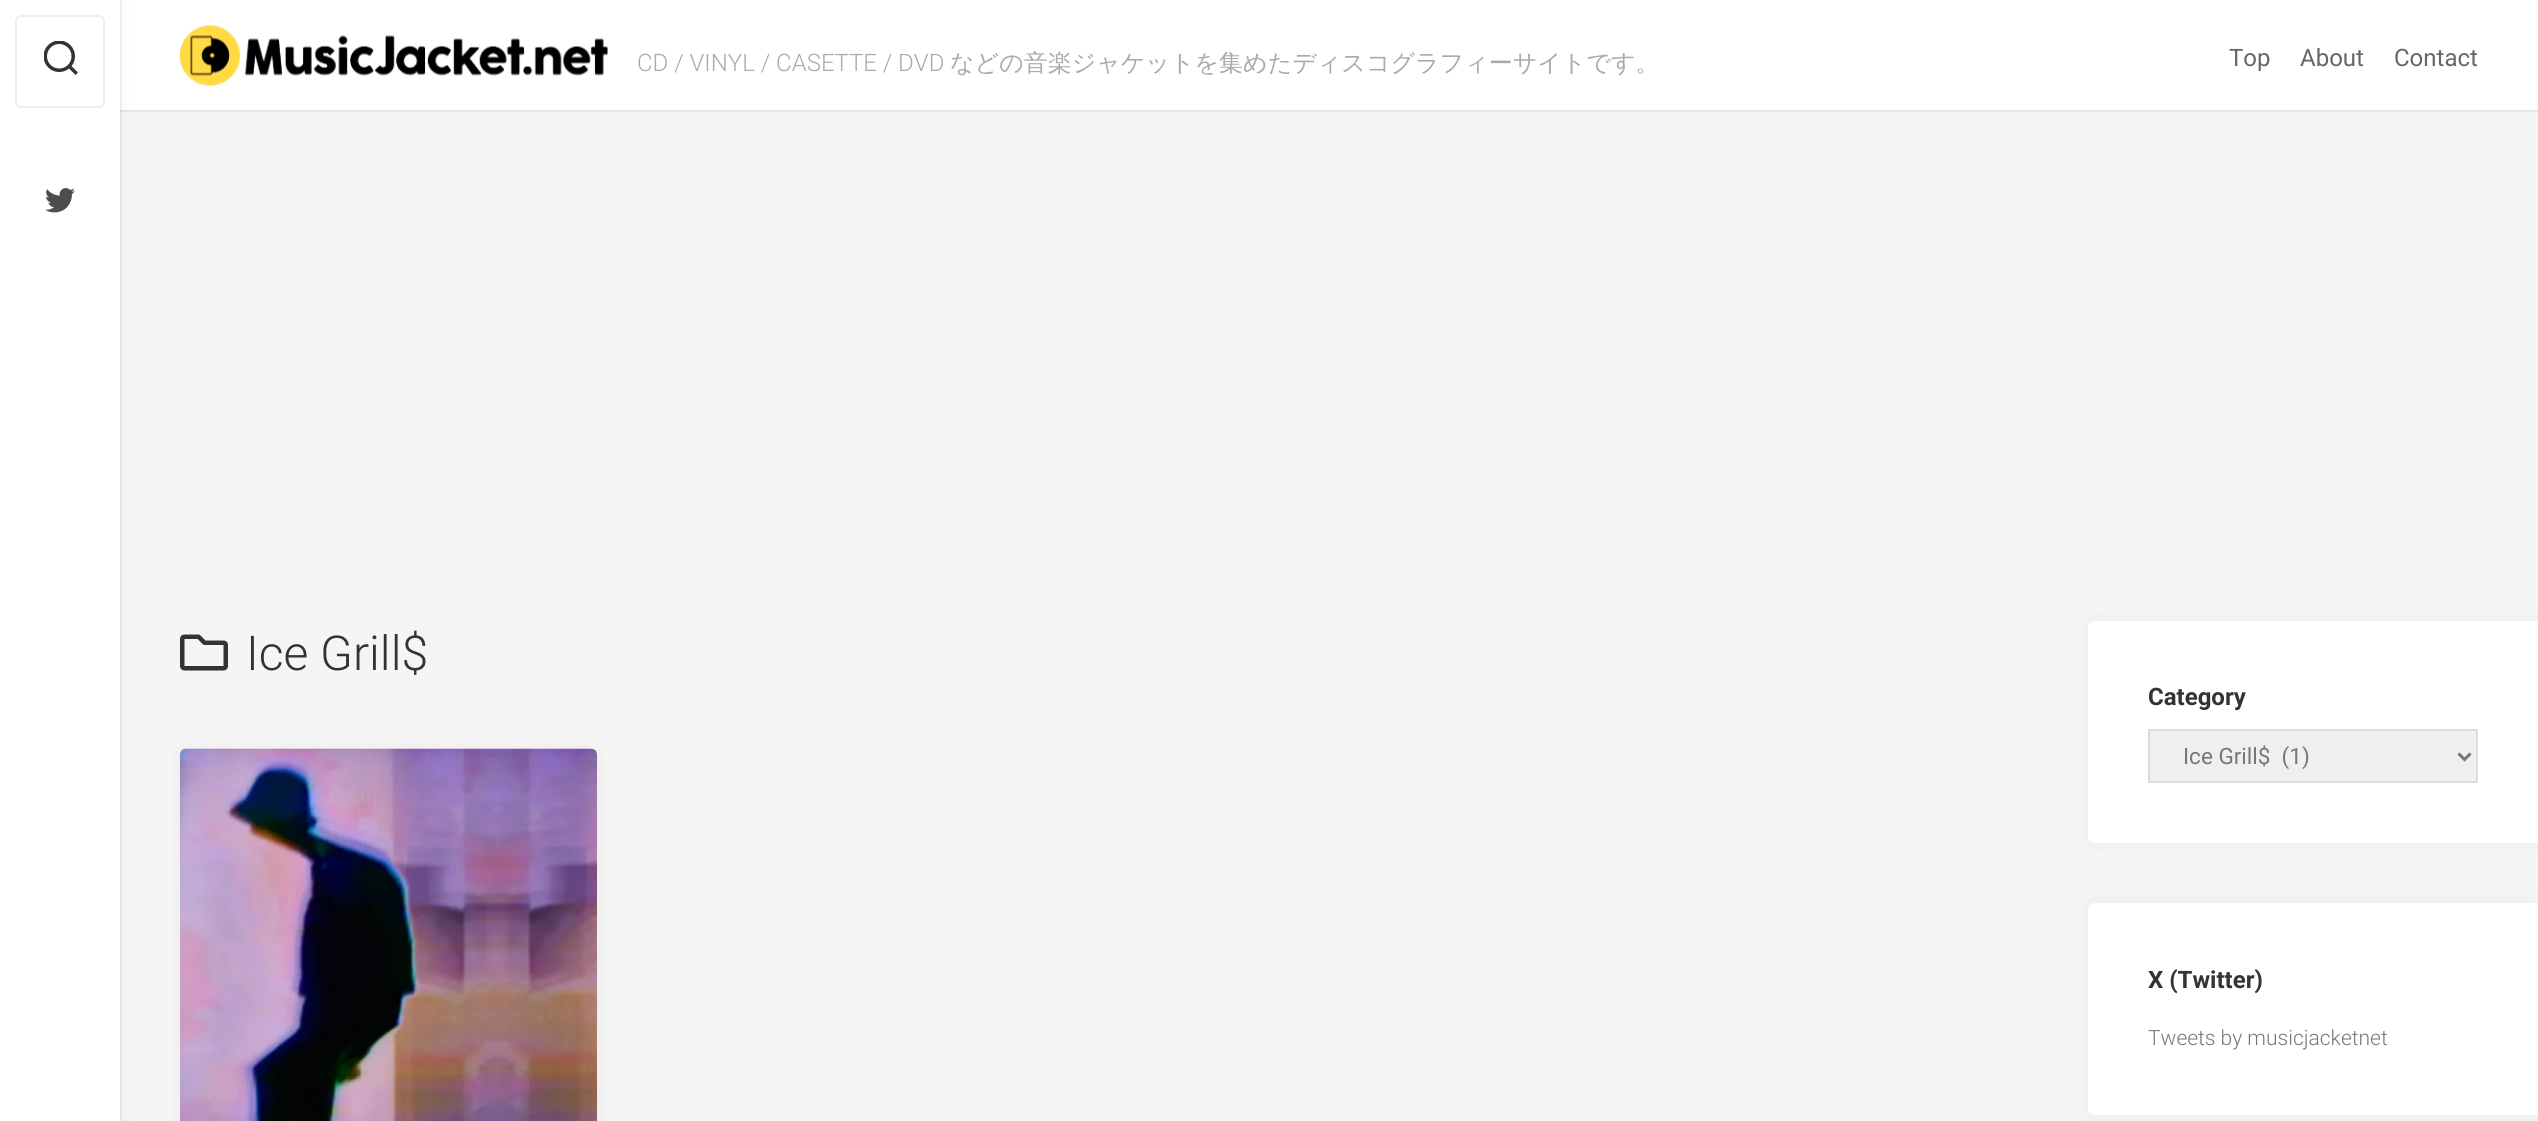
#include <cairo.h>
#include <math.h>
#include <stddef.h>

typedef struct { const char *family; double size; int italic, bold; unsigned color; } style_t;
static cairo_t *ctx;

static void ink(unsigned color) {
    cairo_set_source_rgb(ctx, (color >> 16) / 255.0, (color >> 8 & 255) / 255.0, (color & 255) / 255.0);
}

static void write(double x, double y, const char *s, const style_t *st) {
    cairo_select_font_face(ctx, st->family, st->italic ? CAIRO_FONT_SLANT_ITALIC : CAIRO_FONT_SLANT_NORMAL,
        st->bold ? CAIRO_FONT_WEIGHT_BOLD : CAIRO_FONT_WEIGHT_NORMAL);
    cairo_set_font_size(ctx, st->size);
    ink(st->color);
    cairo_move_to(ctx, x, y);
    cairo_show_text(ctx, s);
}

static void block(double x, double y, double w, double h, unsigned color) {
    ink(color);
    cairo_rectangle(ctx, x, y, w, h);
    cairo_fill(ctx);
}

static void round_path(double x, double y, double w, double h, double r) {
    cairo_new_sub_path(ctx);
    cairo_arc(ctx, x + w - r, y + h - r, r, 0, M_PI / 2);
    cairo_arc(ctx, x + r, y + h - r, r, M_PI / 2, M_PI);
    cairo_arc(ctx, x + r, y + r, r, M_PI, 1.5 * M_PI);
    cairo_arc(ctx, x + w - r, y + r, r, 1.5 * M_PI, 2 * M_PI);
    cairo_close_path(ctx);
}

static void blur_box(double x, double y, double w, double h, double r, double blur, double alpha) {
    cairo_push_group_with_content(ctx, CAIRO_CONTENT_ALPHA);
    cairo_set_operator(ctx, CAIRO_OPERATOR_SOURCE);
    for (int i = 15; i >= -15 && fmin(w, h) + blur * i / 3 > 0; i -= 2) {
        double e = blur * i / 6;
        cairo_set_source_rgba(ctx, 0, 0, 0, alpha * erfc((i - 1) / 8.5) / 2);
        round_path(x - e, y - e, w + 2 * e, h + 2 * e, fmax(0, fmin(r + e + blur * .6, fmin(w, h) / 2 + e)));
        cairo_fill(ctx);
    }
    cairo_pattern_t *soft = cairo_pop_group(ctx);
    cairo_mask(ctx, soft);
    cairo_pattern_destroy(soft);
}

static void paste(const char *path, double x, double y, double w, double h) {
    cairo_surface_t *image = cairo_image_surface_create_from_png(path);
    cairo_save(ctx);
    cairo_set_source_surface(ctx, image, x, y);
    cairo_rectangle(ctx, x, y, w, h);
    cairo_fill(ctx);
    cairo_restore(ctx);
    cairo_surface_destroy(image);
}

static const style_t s1 = {"Roboto Light", 24, 0, 0, 0xaaaaaa};
static const style_t s2 = {"WenQuanYi Zen Hei Medium", 24, 0, 0, 0xaaaaaa};
static const style_t s3 = {"Roboto", 24, 0, 0, 0x666666};
static const style_t s4 = {"Roboto Light", 48, 0, 0, 0x333333};
static const style_t s5 = {"Roboto", 24, 0, 1, 0x333333};
static const style_t s6 = {"Roboto", 22.5, 0, 0, 0x777777};
static const style_t s7 = {"Roboto Light", 21, 0, 0, 0x777777};

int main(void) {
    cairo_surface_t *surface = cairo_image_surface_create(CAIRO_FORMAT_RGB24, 2538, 1121);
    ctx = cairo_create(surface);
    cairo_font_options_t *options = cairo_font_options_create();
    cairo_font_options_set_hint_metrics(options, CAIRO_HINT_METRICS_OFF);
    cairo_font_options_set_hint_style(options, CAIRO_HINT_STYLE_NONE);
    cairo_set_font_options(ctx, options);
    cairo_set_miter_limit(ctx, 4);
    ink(0xf5f5f5);
    cairo_paint(ctx);
    block(120, 0, 2418, 110, 0xffffff);
    block(120, 110, 2418, 2, 0xe5e5e5);
    cairo_set_source_rgba(ctx, 0, 0, 0, 0.05);
    cairo_rectangle(ctx, 120, 0, 2, 1121);
    cairo_fill(ctx);
    ink(0x000000);
    blur_box(0, 0, 120, 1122, 0, 7.5, 0.05);
    block(0, 0, 120, 1121, 0xffffff);
    round_path(16, 16, 88, 91, 5);
    ink(0xeeeeee);
    cairo_stroke(ctx);
    paste("pic1.png", 44, 41, 34, 34);
    paste("pic2.png", 45, 188, 30, 25);
    paste("pic3.png", 180, 25, 428, 61);
    write(637, 71, "CD / VINYL / CASETTE / DVD", &s1);
    write(950, 71, "などの音楽ジャケットを集めたディスコグラフィーサイトです。", &s2);
    write(2229, 66, "Top", &s3);
    write(2300, 66, "About", &s3);
    write(2394, 66, "Contact", &s3);
    paste("pic4.png", 180, 634, 48, 37);
    write(246, 670, "Ice Grill$", &s4);
    ink(0x000000);
    blur_box(180, 749, 417, 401, 6, 7.5, 0.05);
    paste("pic5.png", 180, 748, 417, 373);
    blur_box(2088, 621, 450, 222, 6, 7.5, 0.05);
    ink(0xffffff);
    cairo_new_path(ctx);
    cairo_move_to(ctx, 2094, 621);
    cairo_line_to(ctx, 2538, 621);
    cairo_line_to(ctx, 2538, 843);
    cairo_line_to(ctx, 2094, 843);
    cairo_curve_to(ctx, 2090.5, 843, 2088, 840.5, 2088, 837);
    cairo_line_to(ctx, 2088, 627);
    cairo_curve_to(ctx, 2088, 623.5, 2090.5, 621, 2094, 621);
    cairo_close_path(ctx);
    cairo_fill(ctx);
    write(2148, 705, "Category", &s5);
    ink(0xefefef);
    cairo_rectangle(ctx, 2149, 730, 328, 52);
    cairo_fill_preserve(ctx);
    ink(0xdddddd);
    cairo_stroke(ctx);
    cairo_new_path(ctx);
    cairo_move_to(ctx, 2458.5, 753.5);
    cairo_line_to(ctx, 2464.5, 759.5);
    cairo_line_to(ctx, 2470.5, 753.5);
    ink(0x777777);
    cairo_set_line_width(ctx, 3);
    cairo_stroke(ctx);
    write(2183, 764, "Ice Grill$  (1)", &s6);
    ink(0x000000);
    blur_box(2088, 903, 450, 212, 6, 7.5, 0.05);
    ink(0xffffff);
    cairo_new_path(ctx);
    cairo_move_to(ctx, 2094, 903);
    cairo_line_to(ctx, 2538, 903);
    cairo_line_to(ctx, 2538, 1115);
    cairo_line_to(ctx, 2094, 1115);
    cairo_curve_to(ctx, 2090.5, 1115, 2088, 1112.5, 2088, 1109);
    cairo_line_to(ctx, 2088, 909);
    cairo_curve_to(ctx, 2088, 905.5, 2090.5, 903, 2094, 903);
    cairo_close_path(ctx);
    cairo_fill(ctx);
    write(2148, 988, "X (Twitter)", &s5);
    write(2148, 1045, "Tweets by musicjacketnet", &s7);
    cairo_surface_write_to_png(surface, "screenshot.png");
    cairo_font_options_destroy(options);
    cairo_destroy(ctx);
    cairo_surface_destroy(surface);
    return 0;
}
